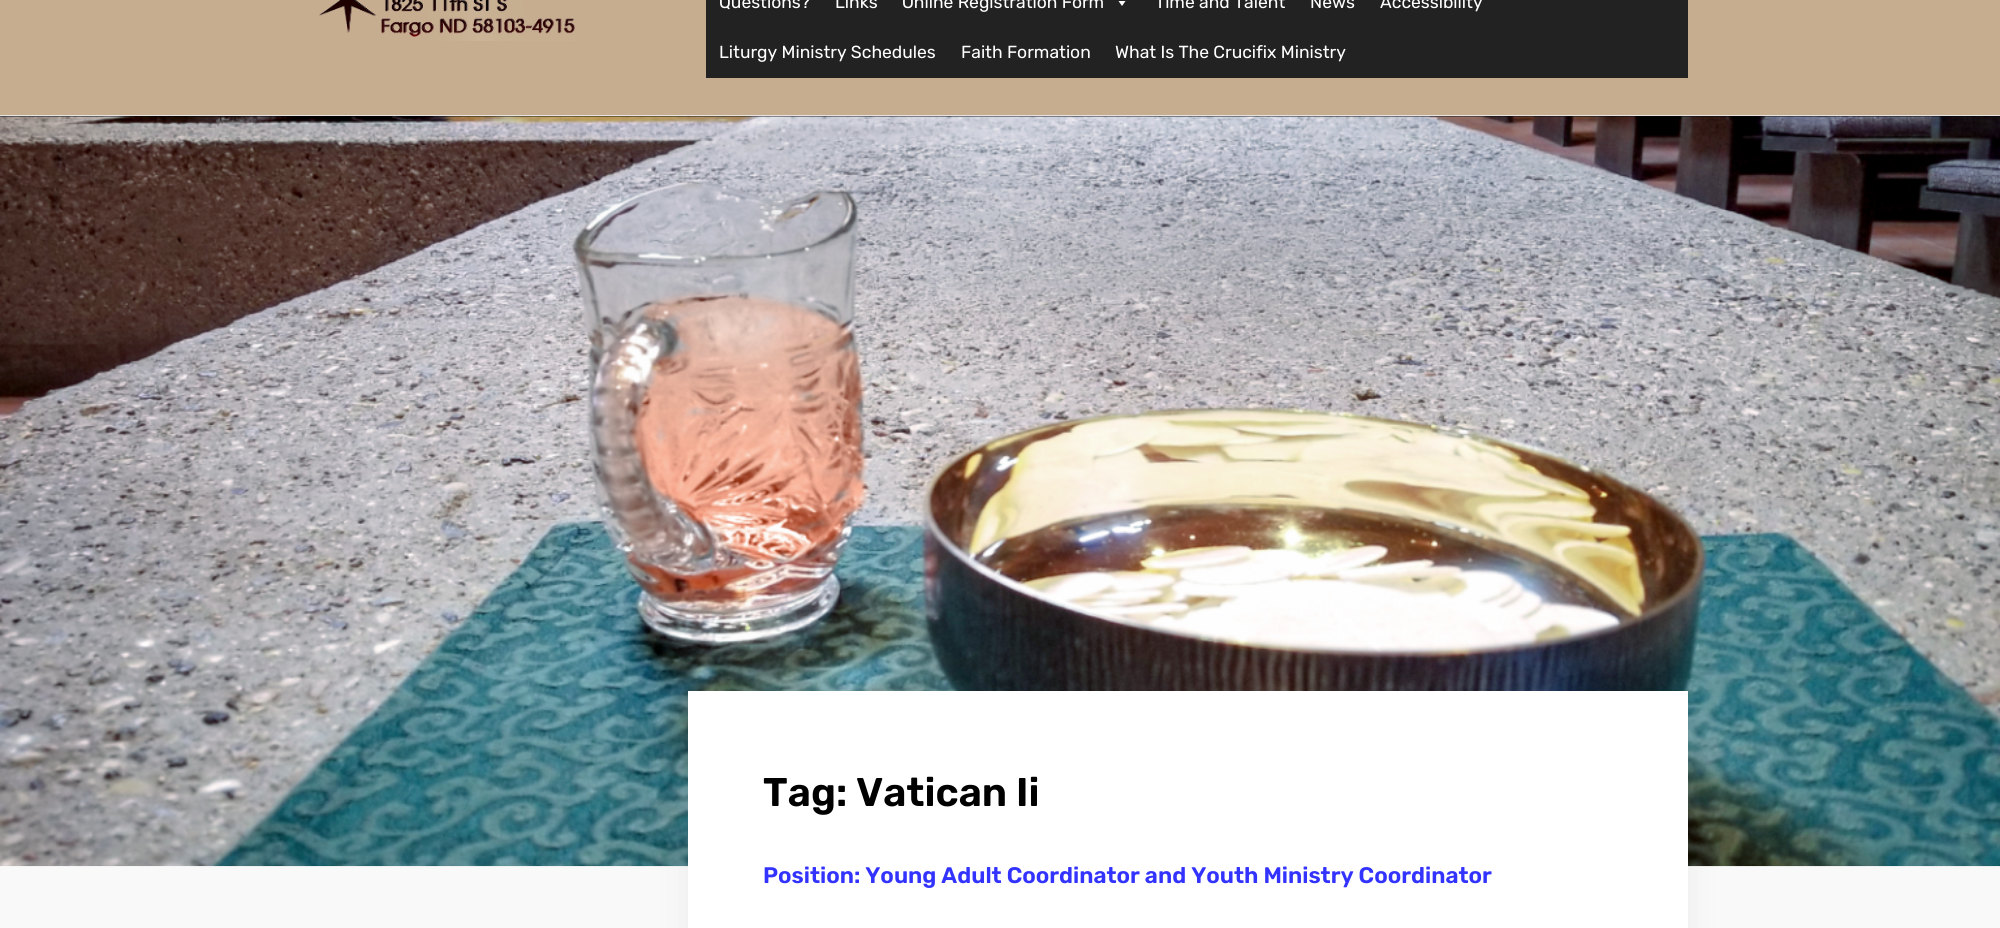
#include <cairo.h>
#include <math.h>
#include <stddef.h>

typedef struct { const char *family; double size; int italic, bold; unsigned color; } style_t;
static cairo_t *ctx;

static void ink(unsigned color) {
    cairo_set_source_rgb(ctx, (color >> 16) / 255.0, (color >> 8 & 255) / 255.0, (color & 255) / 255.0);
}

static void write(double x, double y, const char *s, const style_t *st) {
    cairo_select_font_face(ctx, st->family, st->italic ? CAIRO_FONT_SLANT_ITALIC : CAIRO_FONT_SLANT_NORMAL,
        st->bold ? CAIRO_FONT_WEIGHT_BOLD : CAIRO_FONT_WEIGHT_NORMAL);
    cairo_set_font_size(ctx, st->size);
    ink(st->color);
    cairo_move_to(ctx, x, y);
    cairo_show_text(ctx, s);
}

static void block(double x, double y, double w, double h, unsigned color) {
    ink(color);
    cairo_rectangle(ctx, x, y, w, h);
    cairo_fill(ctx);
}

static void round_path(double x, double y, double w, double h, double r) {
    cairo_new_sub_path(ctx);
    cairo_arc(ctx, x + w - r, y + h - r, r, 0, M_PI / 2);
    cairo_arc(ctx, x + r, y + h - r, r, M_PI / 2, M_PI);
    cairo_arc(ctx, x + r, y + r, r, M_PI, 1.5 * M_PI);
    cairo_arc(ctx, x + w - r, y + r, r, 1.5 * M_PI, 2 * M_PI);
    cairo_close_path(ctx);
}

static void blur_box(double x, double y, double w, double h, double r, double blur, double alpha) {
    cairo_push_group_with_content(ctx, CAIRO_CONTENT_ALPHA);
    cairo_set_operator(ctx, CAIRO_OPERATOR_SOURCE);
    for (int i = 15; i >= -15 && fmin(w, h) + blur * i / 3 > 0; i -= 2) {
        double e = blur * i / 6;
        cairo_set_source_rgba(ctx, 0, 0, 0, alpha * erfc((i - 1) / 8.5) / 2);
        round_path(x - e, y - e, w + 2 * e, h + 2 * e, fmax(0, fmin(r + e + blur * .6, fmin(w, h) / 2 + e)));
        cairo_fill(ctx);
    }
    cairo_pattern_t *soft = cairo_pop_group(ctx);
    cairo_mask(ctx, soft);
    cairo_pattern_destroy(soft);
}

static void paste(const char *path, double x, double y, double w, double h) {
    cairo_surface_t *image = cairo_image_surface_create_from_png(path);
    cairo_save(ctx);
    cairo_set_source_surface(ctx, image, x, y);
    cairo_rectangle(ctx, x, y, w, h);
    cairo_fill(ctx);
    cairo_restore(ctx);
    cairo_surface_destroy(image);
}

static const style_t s1 = {"Rubik", 17.5, 0, 0, 0xffffff};
static const style_t s2 = {"Rubik SemiBold", 40, 0, 0, 0x000000};
static const style_t s3 = {"Rubik SemiBold", 22.5, 0, 0, 0x3333ff};

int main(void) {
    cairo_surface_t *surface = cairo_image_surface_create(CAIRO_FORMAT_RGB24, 2000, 928);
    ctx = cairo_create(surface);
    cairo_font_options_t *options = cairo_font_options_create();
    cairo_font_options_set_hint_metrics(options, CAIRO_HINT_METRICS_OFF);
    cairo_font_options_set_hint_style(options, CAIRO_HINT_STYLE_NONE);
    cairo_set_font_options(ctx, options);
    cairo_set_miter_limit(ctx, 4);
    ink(0xf9f9f9);
    cairo_paint(ctx);
    block(0, 0, 2000, 115, 0xc6ad8f);
    block(0, 115, 2000, 1, 0xe7e3e0);
    paste("pic1.png", 319, 0, 256, 41);
    block(706, 0, 982, 78, 0x222222);
    write(719, 8, "Questions?", &s1);
    write(835, 8, "Links", &s1);
    write(902, 8, "Online Registration Form", &s1);
    cairo_new_path(ctx);
    cairo_move_to(ctx, 1125.5, 1);
    cairo_line_to(ctx, 1122, 6);
    cairo_line_to(ctx, 1118.5, 1);
    cairo_close_path(ctx);
    cairo_fill(ctx);
    write(1155, 8, "Time and Talent", &s1);
    write(1310, 8, "News", &s1);
    write(1380, 8, "Accessibility", &s1);
    write(719, 58, "Liturgy Ministry Schedules", &s1);
    write(961, 58, "Faith Formation", &s1);
    write(1115, 58, "What Is The Crucifix Ministry", &s1);
    block(0, 116, 2000, 1, 0x090909);
    paste("pic2.png", 0, 116, 2000, 751);
    ink(0x000000);
    blur_box(688, 691, 1000, 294, 0, 19, 0.06);
    block(688, 691, 1000, 237, 0xffffff);
    write(763, 806, "Tag: Vatican Ii", &s2);
    write(763, 883, "Position: Young Adult Coordinator and Youth Ministry Coordinator", &s3);
    cairo_surface_write_to_png(surface, "screenshot.png");
    cairo_font_options_destroy(options);
    cairo_destroy(ctx);
    cairo_surface_destroy(surface);
    return 0;
}
